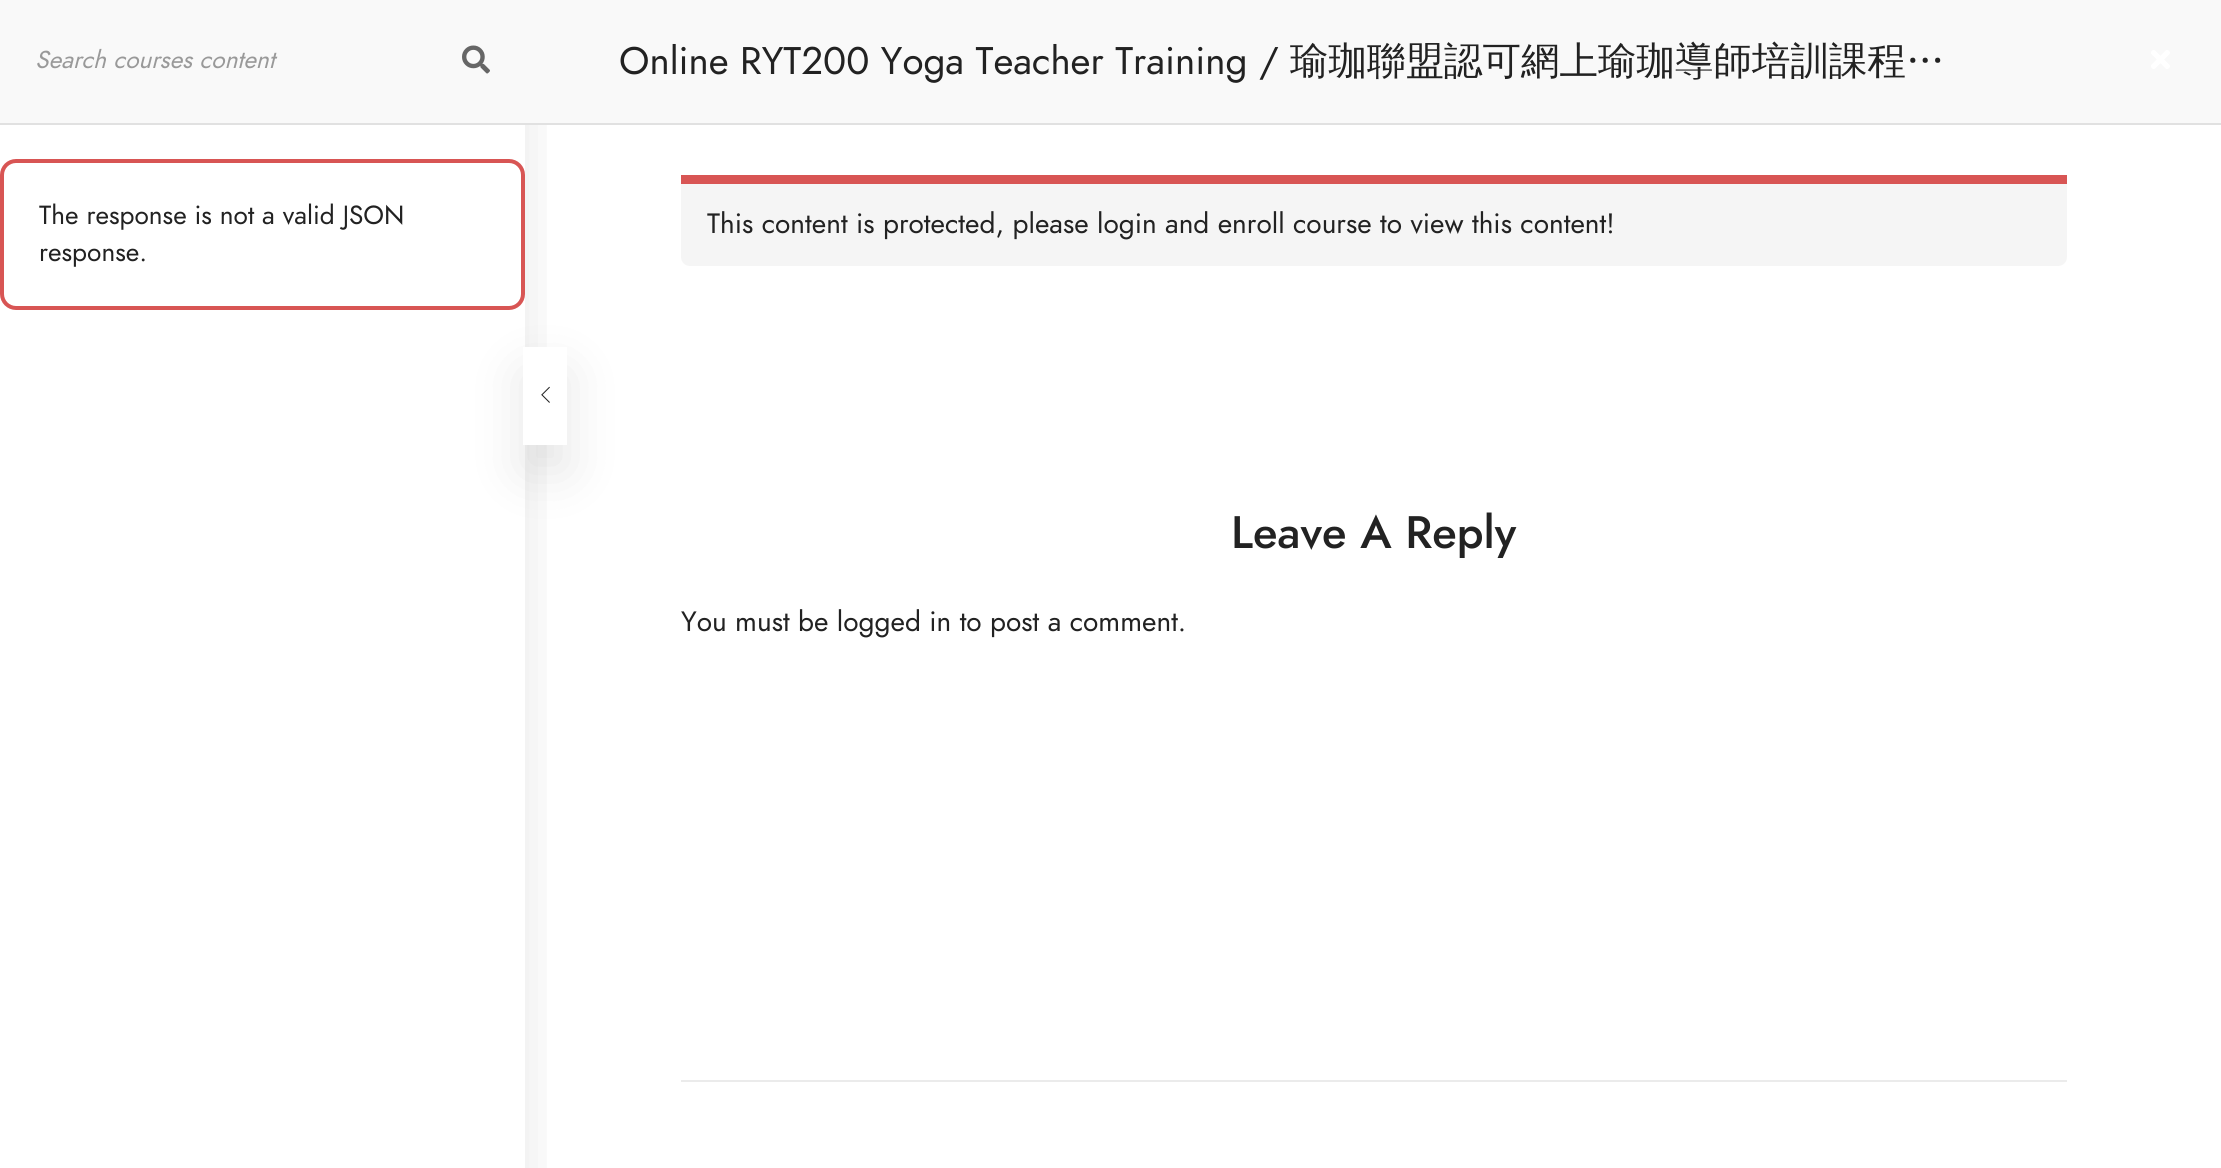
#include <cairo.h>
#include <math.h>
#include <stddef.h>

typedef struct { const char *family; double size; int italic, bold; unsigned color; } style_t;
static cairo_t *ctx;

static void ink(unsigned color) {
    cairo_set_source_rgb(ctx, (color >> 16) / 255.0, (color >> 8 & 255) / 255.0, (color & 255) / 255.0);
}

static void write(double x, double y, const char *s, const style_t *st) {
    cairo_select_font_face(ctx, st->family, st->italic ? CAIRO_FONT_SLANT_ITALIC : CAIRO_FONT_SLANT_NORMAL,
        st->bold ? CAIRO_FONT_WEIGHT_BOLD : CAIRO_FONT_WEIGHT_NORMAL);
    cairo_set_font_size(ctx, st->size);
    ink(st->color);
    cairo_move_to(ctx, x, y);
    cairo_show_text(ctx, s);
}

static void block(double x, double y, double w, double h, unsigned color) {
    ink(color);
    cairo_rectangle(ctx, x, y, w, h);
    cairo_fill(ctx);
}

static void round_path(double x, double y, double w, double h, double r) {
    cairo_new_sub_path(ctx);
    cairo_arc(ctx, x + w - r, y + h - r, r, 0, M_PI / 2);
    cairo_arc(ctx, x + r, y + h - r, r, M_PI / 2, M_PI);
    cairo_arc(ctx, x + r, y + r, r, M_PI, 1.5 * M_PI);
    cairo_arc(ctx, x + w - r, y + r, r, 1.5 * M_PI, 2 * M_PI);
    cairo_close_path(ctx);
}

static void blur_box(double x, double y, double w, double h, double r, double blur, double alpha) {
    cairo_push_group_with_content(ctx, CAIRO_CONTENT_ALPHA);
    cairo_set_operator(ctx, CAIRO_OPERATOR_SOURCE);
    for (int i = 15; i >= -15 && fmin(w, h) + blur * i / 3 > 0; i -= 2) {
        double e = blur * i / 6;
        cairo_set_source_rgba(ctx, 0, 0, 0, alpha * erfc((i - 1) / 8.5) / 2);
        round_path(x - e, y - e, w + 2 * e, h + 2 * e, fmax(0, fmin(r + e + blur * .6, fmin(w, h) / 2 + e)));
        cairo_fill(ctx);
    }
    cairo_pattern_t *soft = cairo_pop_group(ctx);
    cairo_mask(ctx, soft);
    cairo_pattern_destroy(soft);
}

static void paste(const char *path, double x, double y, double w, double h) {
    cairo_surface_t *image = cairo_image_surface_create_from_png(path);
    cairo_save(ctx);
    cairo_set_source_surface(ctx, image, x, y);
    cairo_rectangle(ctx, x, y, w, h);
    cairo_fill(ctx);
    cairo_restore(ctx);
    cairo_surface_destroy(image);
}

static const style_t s1 = {"Jost", 24.5, 1, 0, 0x999999};
static const style_t s2 = {"Jost", 26.25, 0, 0, 0x222222};
static const style_t s3 = {"Jost", 38.5, 0, 0, 0x222222};
static const style_t s4 = {"WenQuanYi Zen Hei Medium", 38.5, 0, 0, 0x222222};
static const style_t s5 = {"Jost", 28, 0, 0, 0x222222};
static const style_t s6 = {"Jost Medium", 45.5, 0, 0, 0x222222};

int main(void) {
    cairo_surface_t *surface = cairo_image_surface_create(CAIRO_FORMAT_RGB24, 2221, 1168);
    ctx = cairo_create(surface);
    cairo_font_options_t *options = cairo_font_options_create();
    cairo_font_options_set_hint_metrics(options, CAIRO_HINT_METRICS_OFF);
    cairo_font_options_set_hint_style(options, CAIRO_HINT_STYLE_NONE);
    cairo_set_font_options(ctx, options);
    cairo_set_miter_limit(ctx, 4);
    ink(0xffffff);
    cairo_paint(ctx);
    cairo_save(ctx);
    cairo_rectangle(ctx, 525, 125, 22, 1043);
    cairo_clip(ctx);
    ink(0x000000);
    blur_box(0, 26, 525, 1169, 0, 26, 0.1);
    cairo_restore(ctx);
    block(0, 0, 2221, 123, 0xf9f9f9);
    block(0, 123, 2221, 2, 0xe1e1e1);
    write(35, 68, "Search courses content", &s1);
    paste("pic1.png", 462, 45, 28, 29);
    round_path(2, 161, 521, 147, 14);
    ink(0xd85554);
    cairo_set_line_width(ctx, 4);
    cairo_stroke(ctx);
    write(39, 224, "The response is not a valid JSON", &s2);
    write(39, 261, "response.", &s2);
    write(619, 74, "Online RYT200 Yoga Teacher Training /", &s3);
    write(1290, 74, "瑜珈聯盟認可網上瑜珈導師培訓課程…", &s4);
    paste("pic2.png", 2151, 50, 19, 19);
    ink(0x000000);
    blur_box(523, 373, 44, 98, 0, 26, 0.1);
    block(523, 347, 44, 98, 0xffffff);
    paste("pic3.png", 541, 386, 9, 17);
    ink(0xf5f5f5);
    cairo_new_path(ctx);
    cairo_move_to(ctx, 681, 175);
    cairo_line_to(ctx, 2067, 175);
    cairo_line_to(ctx, 2067, 257);
    cairo_curve_to(ctx, 2067, 262, 2063, 266, 2058, 266);
    cairo_line_to(ctx, 690, 266);
    cairo_curve_to(ctx, 685, 266, 681, 262, 681, 257);
    cairo_close_path(ctx);
    cairo_fill(ctx);
    block(681, 175, 1386, 9, 0xd85554);
    write(707, 233, "This content is protected, please login and enroll course to view this content!", &s5);
    write(1231, 548, "Leave A Reply", &s6);
    write(681, 631, "You must be logged in to post a comment.", &s5);
    block(681, 1080, 1386, 2, 0xebebeb);
    cairo_surface_write_to_png(surface, "screenshot.png");
    cairo_font_options_destroy(options);
    cairo_destroy(ctx);
    cairo_surface_destroy(surface);
    return 0;
}
